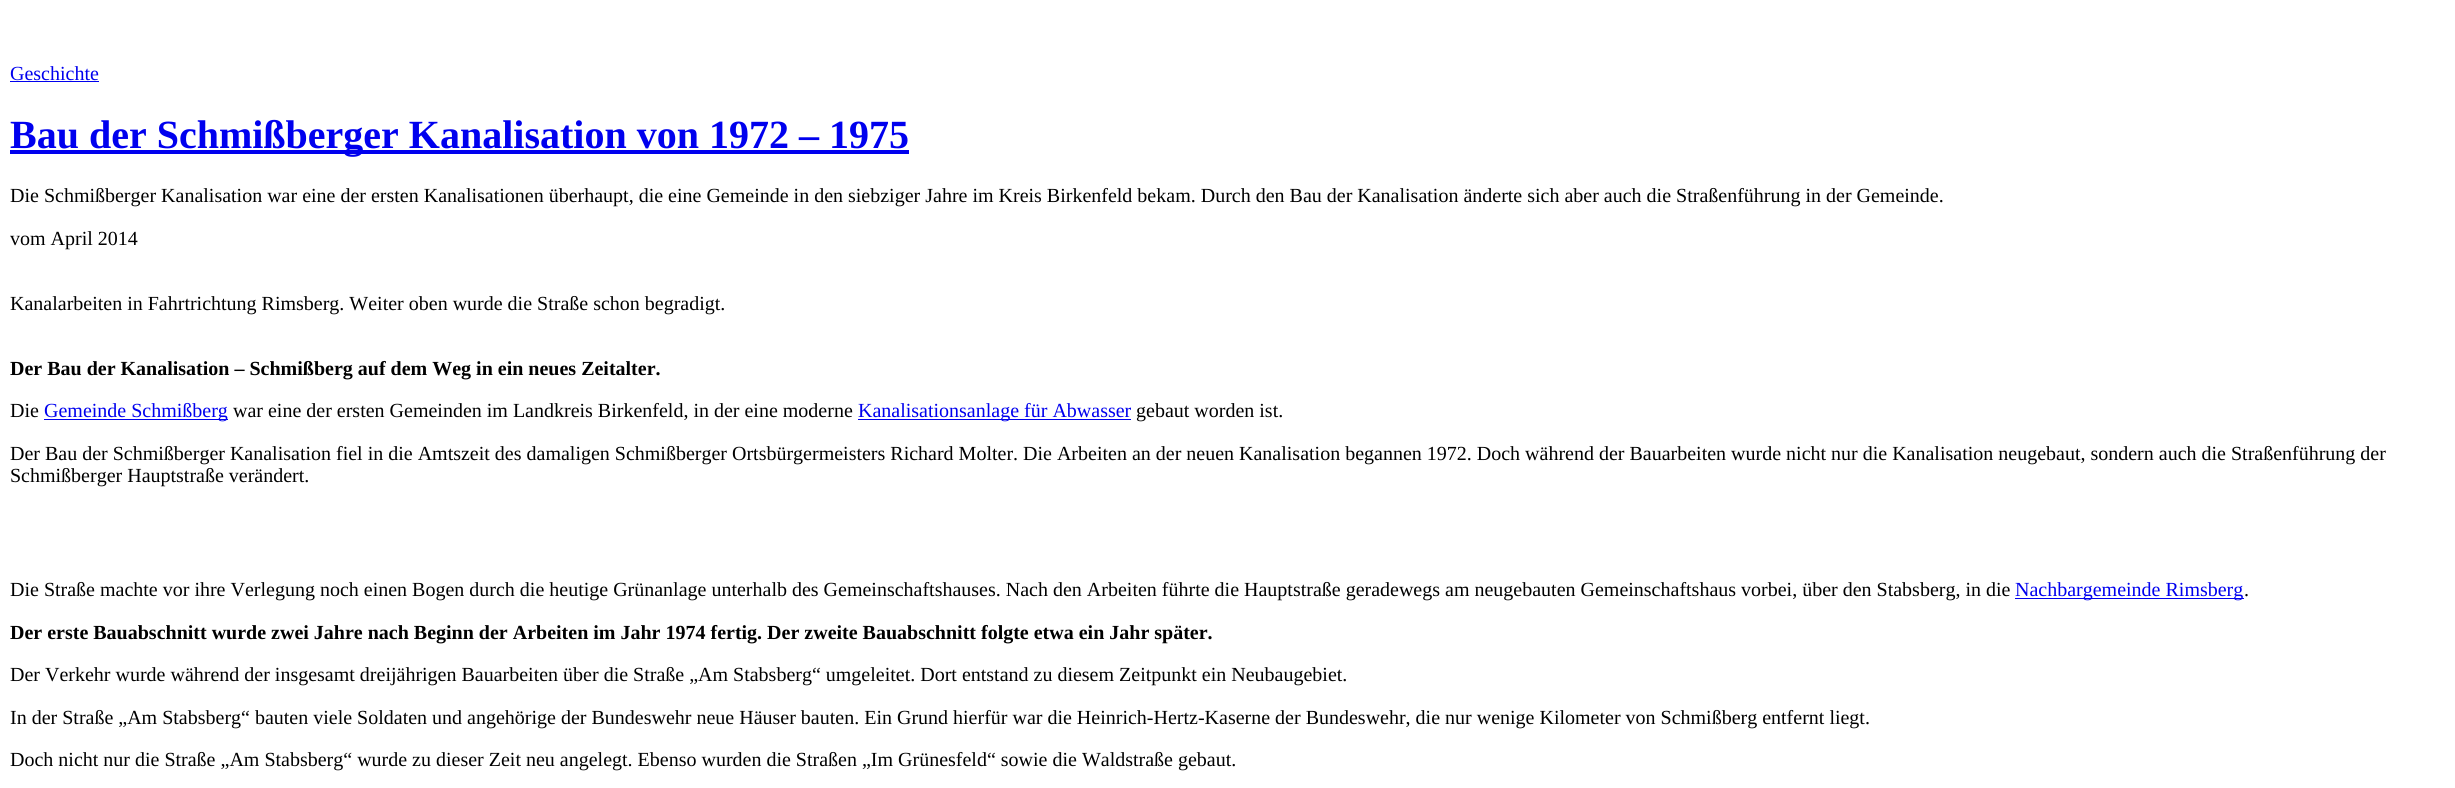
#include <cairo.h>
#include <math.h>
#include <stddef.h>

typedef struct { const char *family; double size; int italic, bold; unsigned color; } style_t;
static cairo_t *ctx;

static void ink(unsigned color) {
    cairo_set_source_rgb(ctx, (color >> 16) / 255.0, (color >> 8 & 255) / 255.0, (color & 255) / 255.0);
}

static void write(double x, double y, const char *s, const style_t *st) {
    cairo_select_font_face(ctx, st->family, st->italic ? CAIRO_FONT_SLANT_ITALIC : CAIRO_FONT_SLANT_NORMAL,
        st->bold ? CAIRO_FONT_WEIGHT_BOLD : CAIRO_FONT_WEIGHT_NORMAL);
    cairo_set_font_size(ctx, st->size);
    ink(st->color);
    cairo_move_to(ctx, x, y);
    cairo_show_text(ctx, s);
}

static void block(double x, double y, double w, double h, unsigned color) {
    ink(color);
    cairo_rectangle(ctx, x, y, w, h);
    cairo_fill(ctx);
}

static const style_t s1 = {"Liberation Serif", 20, 0, 0, 0x0000ee};
static const style_t s2 = {"Liberation Serif", 40, 0, 1, 0x0000ee};
static const style_t s3 = {"Liberation Serif", 20, 0, 0, 0x000000};
static const style_t s4 = {"Liberation Serif", 20, 0, 1, 0x000000};

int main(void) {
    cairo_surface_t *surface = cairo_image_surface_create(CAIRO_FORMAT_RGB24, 2455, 788);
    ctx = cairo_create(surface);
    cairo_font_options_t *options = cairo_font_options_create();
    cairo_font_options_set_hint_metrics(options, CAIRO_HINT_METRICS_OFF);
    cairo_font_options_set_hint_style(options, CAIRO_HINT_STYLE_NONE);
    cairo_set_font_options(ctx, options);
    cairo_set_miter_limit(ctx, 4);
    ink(0xffffff);
    cairo_paint(ctx);
    write(10, 80, "Geschichte", &s1);
    block(10, 81, 89, 1, 0x0000ee);
    block(10, 150, 899, 4, 0x0000ee);
    write(10, 148, "Bau der Schmißberger Kanalisation von 1972 – 1975", &s2);
    write(10, 202, "Die Schmißberger Kanalisation war eine der ersten Kanalisationen überhaupt, die eine Gemeinde in den siebziger Jahre im Kreis Birkenfeld bekam. Durch den Bau der Kanalisation änderte sich aber auch die Straßenführung in der Gemeinde.", &s3);
    write(10, 245, "vom April 2014", &s3);
    write(10, 310, "Kanalarbeiten in Fahrtrichtung Rimsberg. Weiter oben wurde die Straße schon begradigt.", &s3);
    write(10, 375, "Der Bau der Kanalisation – Schmißberg auf dem Weg in ein neues Zeitalter.", &s4);
    write(10, 417, "Die", &s3);
    block(44, 419, 184, 1, 0x0000ee);
    write(44, 417, "Gemeinde Schmißberg", &s1);
    write(233, 417, "war eine der ersten Gemeinden im Landkreis Birkenfeld, in der eine moderne", &s3);
    block(858, 419, 273, 1, 0x0000ee);
    write(858, 417, "Kanalisationsanlage für Abwasser", &s1);
    write(1136, 417, "gebaut worden ist.", &s3);
    write(10, 460, "Der Bau der Schmißberger Kanalisation fiel in die Amtszeit des damaligen Schmißberger Ortsbürgermeisters Richard Molter. Die Arbeiten an der neuen Kanalisation begannen 1972. Doch während der Bauarbeiten wurde nicht nur die Kanalisation neugebaut, sondern auch die Straßenführung der", &s3);
    write(10, 482, "Schmißberger Hauptstraße verändert.", &s3);
    write(10, 596, "Die Straße machte vor ihre Verlegung noch einen Bogen durch die heutige Grünanlage unterhalb des Gemeinschaftshauses. Nach den Arbeiten führte die Hauptstraße geradewegs am neugebauten Gemeinschaftshaus vorbei, über den Stabsberg, in die", &s3);
    block(2015, 598, 229, 1, 0x0000ee);
    write(2015, 596, "Nachbargemeinde Rimsberg", &s1);
    write(2244, 596, ".", &s3);
    write(10, 639, "Der erste Bauabschnitt wurde zwei Jahre nach Beginn der Arbeiten im Jahr 1974 fertig. Der zweite Bauabschnitt folgte etwa ein Jahr später.", &s4);
    write(10, 681, "Der Verkehr wurde während der insgesamt dreijährigen Bauarbeiten über die Straße „Am Stabsberg“ umgeleitet. Dort entstand zu diesem Zeitpunkt ein Neubaugebiet.", &s3);
    write(10, 724, "In der Straße „Am Stabsberg“ bauten viele Soldaten und angehörige der Bundeswehr neue Häuser bauten. Ein Grund hierfür war die Heinrich-Hertz-Kaserne der Bundeswehr, die nur wenige Kilometer von Schmißberg entfernt liegt.", &s3);
    write(10, 766, "Doch nicht nur die Straße „Am Stabsberg“ wurde zu dieser Zeit neu angelegt. Ebenso wurden die Straßen „Im Grünesfeld“ sowie die Waldstraße gebaut.", &s3);
    cairo_surface_write_to_png(surface, "screenshot.png");
    cairo_font_options_destroy(options);
    cairo_destroy(ctx);
    cairo_surface_destroy(surface);
    return 0;
}
